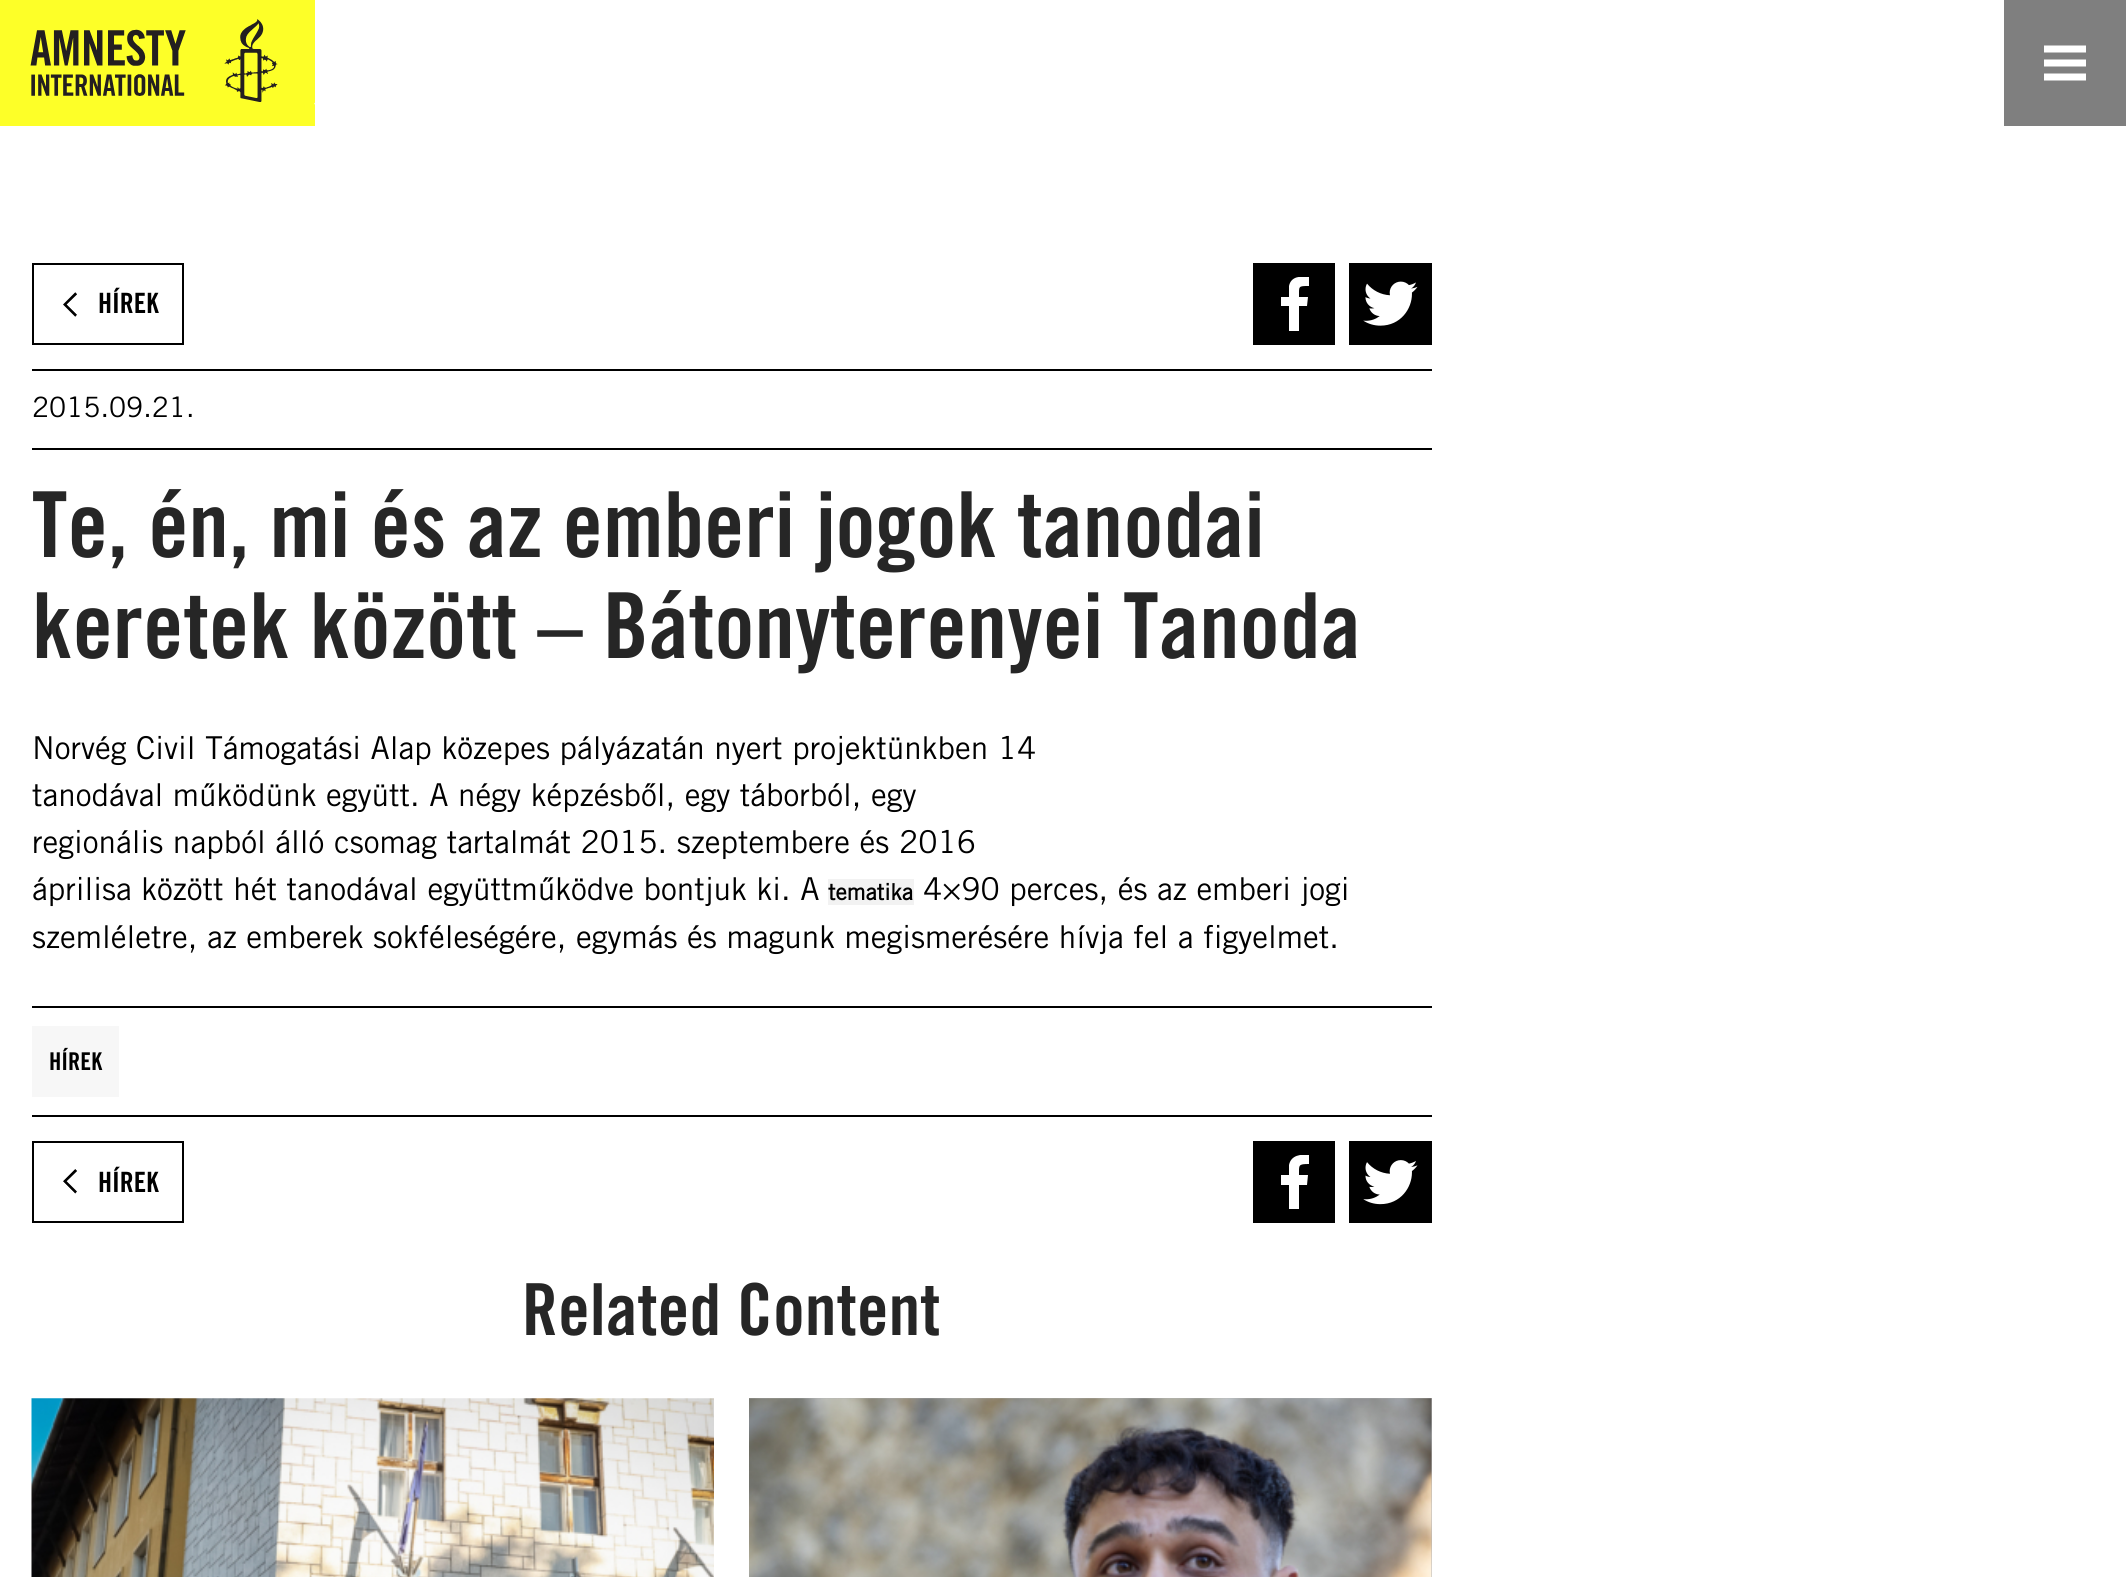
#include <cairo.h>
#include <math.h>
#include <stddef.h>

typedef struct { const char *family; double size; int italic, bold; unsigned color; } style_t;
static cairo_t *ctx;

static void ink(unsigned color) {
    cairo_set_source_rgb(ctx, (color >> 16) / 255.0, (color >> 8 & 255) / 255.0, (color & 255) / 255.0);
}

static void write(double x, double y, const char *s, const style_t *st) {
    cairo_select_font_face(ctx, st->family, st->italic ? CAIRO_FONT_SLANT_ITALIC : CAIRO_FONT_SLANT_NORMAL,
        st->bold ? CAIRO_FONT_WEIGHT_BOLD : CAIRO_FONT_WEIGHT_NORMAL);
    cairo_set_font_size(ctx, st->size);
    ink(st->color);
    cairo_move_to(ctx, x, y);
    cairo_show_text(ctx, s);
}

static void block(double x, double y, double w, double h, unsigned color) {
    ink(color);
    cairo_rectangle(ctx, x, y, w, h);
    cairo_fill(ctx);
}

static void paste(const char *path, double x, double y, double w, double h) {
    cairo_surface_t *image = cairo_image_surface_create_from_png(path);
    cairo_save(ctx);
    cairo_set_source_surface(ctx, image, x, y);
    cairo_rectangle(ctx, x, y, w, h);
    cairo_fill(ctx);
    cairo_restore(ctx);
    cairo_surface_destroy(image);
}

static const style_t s1 = {"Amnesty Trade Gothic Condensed", 28, 0, 1, 0x000000};
static const style_t s2 = {"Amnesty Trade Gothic", 28, 0, 0, 0x000000};
static const style_t s3 = {"Amnesty Trade Gothic Condensed", 91, 0, 1, 0x262626};
static const style_t s4 = {"Amnesty Trade Gothic", 31.5, 0, 0, 0x000000};
static const style_t s5 = {"Amnesty Trade Gothic", 22.5, 0, 1, 0x000000};
static const style_t s6 = {"Amnesty Trade Gothic Condensed", 24.5, 0, 1, 0x000000};
static const style_t s7 = {"Amnesty Trade Gothic Condensed", 71.75, 0, 1, 0x262626};

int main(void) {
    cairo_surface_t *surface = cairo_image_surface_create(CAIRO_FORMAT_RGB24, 2126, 1577);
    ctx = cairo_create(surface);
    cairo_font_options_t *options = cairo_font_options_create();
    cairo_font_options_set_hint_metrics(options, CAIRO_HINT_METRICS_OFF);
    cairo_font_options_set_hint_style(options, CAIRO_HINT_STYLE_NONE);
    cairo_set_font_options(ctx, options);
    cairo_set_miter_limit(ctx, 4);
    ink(0xffffff);
    cairo_paint(ctx);
    block(0, 0, 315, 126, 0xfdff28);
    paste("pic1.png", 30, 19, 285, 86);
    block(2004, 0, 122, 126, 0x7f7f7f);
    paste("pic2.png", 2044, 45, 42, 36);
    cairo_rectangle(ctx, 33, 264, 150, 80);
    ink(0x000000);
    cairo_stroke(ctx);
    paste("pic3.png", 63, 292, 14, 25);
    write(98, 313, "HÍREK", &s1);
    block(1253, 263, 82, 82, 0x000000);
    cairo_save(ctx);
    cairo_rectangle(ctx, 1281, 277, 28, 54);
    cairo_clip(ctx);
    ink(0xffffff);
    cairo_new_path(ctx);
    cairo_move_to(ctx, 1289, 331);
    cairo_line_to(ctx, 1289, 306);
    cairo_line_to(ctx, 1281, 306);
    cairo_line_to(ctx, 1281, 297);
    cairo_line_to(ctx, 1289, 297);
    cairo_line_to(ctx, 1289, 286);
    cairo_curve_to(ctx, 1291, 276, 1301, 276, 1309, 277);
    cairo_line_to(ctx, 1309, 286);
    cairo_curve_to(ctx, 1298, 286, 1299, 286, 1299, 297);
    cairo_line_to(ctx, 1308, 297);
    cairo_line_to(ctx, 1307, 306);
    cairo_line_to(ctx, 1299, 306);
    cairo_line_to(ctx, 1299, 331);
    cairo_fill(ctx);
    cairo_restore(ctx);
    block(1349, 263, 83, 82, 0x000000);
    paste("pic4.png", 1363, 281, 55, 45);
    block(32, 369, 1400, 2, 0x000000);
    block(32, 448, 1400, 2, 0x000000);
    write(32, 417, "2015.09.21.", &s2);
    write(32, 557, "Te, én, mi és az emberi jogok tanodai", &s3);
    write(32, 658, "keretek között – Bátonyterenyei Tanoda", &s3);
    write(32, 759, "Norvég Civil Támogatási Alap közepes pályázatán nyert projektünkben 14", &s4);
    write(32, 806, "tanodával működünk együtt. A négy képzésből, egy táborból, egy", &s4);
    write(32, 853, "regionális napból álló csomag tartalmát 2015. szeptembere és 2016", &s4);
    write(32, 900, "áprilisa között hét tanodával együttműködve bontjuk ki. A", &s4);
    block(828, 879, 86, 26, 0xf2f2f2);
    write(828, 900, "tematika", &s5);
    write(923, 900, "4×90 perces, és az emberi jogi", &s4);
    write(32, 948, "szemléletre, az emberek sokféleségére, egymás és magunk megismerésére hívja fel a figyelmet.", &s4);
    block(32, 1006, 1400, 2, 0x000000);
    block(32, 1115, 1400, 2, 0x000000);
    block(32, 1026, 87, 71, 0xf7f7f7);
    write(49, 1070, "HÍREK", &s6);
    cairo_rectangle(ctx, 33, 1142, 150, 80);
    cairo_stroke(ctx);
    paste("pic5.png", 63, 1169, 14, 25);
    write(98, 1192, "HÍREK", &s1);
    block(1253, 1141, 82, 82, 0x000000);
    cairo_save(ctx);
    cairo_rectangle(ctx, 1281, 1155, 28, 54);
    cairo_clip(ctx);
    ink(0xffffff);
    cairo_new_path(ctx);
    cairo_move_to(ctx, 1289, 1209);
    cairo_line_to(ctx, 1289, 1185);
    cairo_line_to(ctx, 1281, 1185);
    cairo_line_to(ctx, 1281, 1175);
    cairo_line_to(ctx, 1289, 1175);
    cairo_line_to(ctx, 1289, 1165);
    cairo_curve_to(ctx, 1291, 1155, 1301, 1154, 1309, 1155);
    cairo_line_to(ctx, 1309, 1164);
    cairo_curve_to(ctx, 1298, 1164, 1299, 1165, 1299, 1175);
    cairo_line_to(ctx, 1308, 1175);
    cairo_line_to(ctx, 1307, 1185);
    cairo_line_to(ctx, 1299, 1185);
    cairo_line_to(ctx, 1299, 1209);
    cairo_fill(ctx);
    cairo_restore(ctx);
    block(1349, 1141, 83, 82, 0x000000);
    paste("pic6.png", 1363, 1160, 55, 45);
    write(522, 1335, "Related Content", &s7);
    paste("pic7.png", 31, 1398, 683, 179);
    block(749, 1398, 683, 179, 0xb5b5b5);
    paste("pic8.png", 749, 1398, 683, 179);
    cairo_surface_write_to_png(surface, "screenshot.png");
    cairo_font_options_destroy(options);
    cairo_destroy(ctx);
    cairo_surface_destroy(surface);
    return 0;
}
